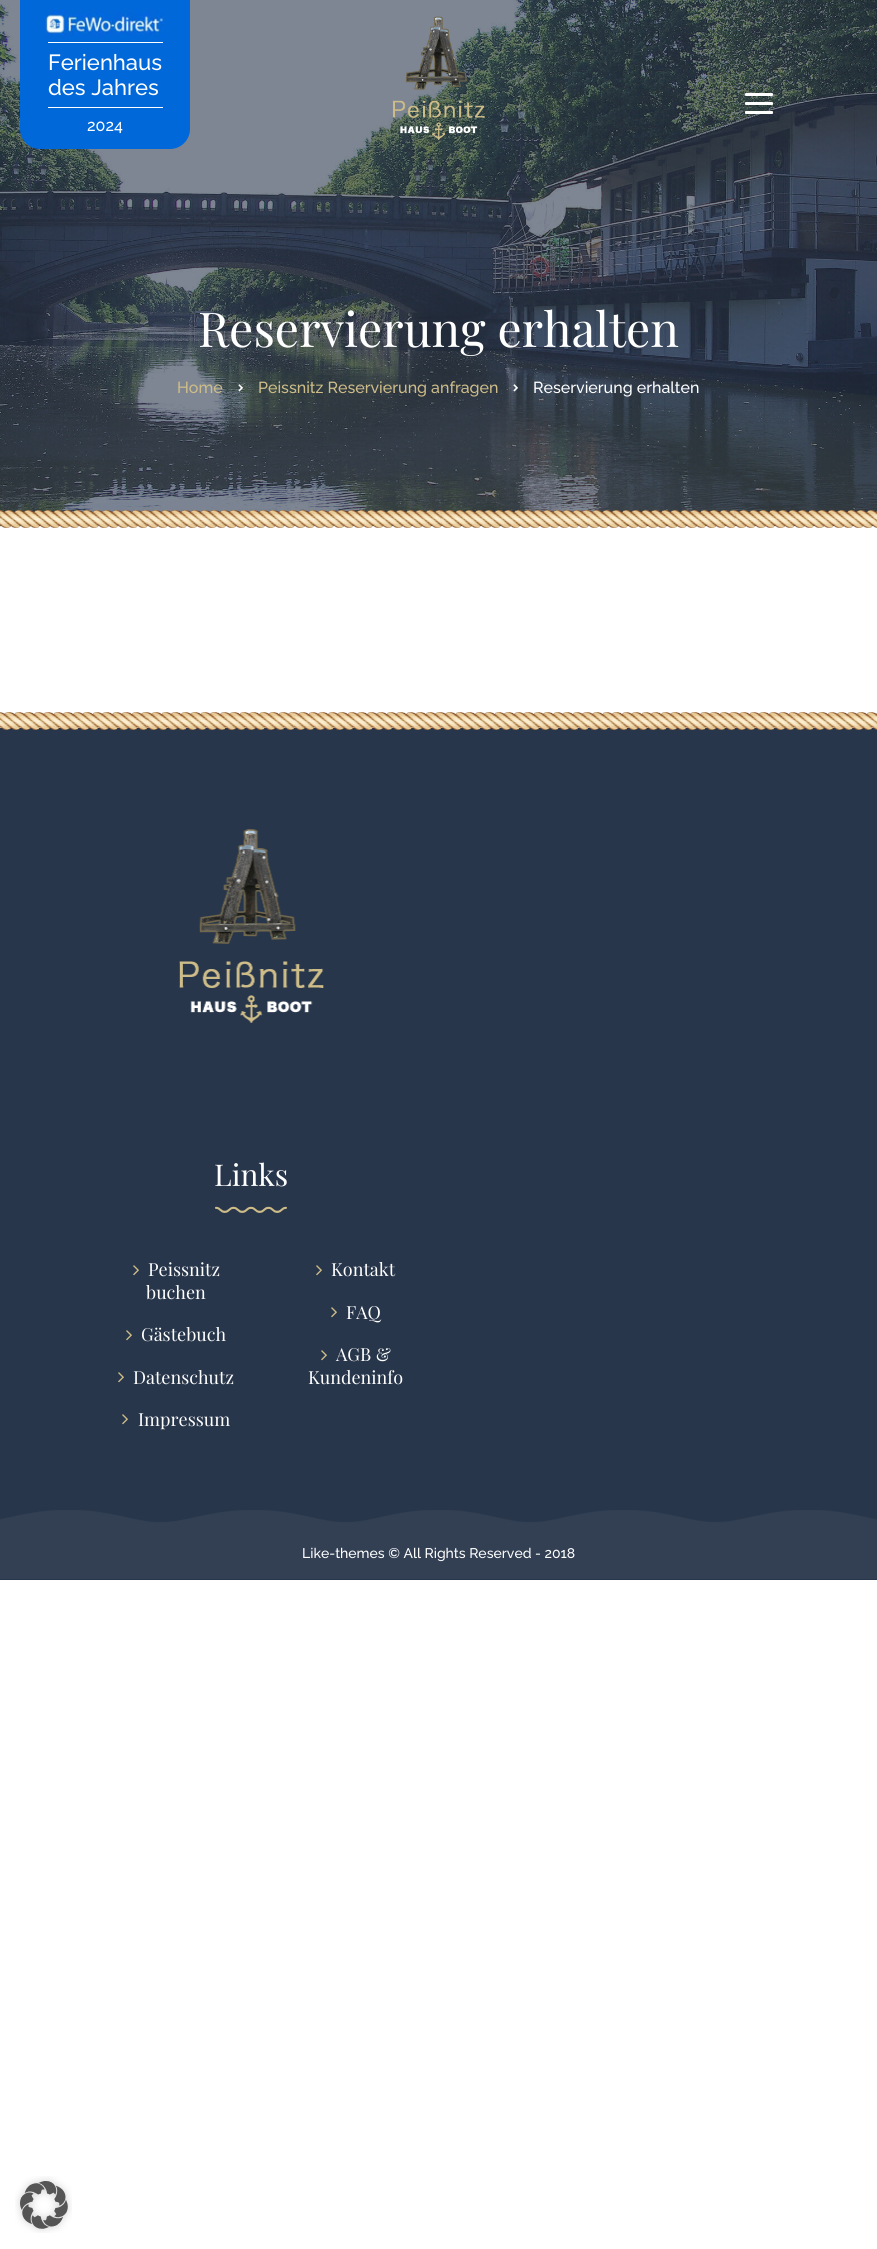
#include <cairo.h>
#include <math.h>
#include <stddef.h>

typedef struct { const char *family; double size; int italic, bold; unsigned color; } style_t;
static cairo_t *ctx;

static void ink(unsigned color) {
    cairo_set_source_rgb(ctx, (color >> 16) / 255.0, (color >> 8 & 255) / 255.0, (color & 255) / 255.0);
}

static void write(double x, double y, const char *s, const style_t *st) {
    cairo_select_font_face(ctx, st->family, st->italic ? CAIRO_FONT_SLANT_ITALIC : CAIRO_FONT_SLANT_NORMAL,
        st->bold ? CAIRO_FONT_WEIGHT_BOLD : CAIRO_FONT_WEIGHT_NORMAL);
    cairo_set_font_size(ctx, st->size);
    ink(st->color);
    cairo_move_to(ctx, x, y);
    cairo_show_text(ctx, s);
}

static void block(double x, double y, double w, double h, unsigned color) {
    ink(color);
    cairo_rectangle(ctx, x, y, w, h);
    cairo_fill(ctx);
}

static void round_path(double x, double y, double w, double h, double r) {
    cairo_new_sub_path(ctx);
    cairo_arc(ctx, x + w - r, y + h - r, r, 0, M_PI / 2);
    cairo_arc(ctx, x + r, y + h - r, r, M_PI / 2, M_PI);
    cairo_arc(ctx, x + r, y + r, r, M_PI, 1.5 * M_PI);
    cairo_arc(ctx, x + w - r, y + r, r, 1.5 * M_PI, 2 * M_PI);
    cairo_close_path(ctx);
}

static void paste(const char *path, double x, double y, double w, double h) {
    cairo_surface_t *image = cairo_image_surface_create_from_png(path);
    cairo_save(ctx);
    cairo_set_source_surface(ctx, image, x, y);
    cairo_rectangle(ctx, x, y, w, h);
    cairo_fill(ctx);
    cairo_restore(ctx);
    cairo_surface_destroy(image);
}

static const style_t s1 = {"Raleway Thin", 22, 0, 0, 0xffffff};
static const style_t s2 = {"Raleway Thin", 16, 0, 0, 0xffffff};
static const style_t s3 = {"Playfair Display", 48, 0, 0, 0xffffff};
static const style_t s4 = {"Raleway Thin", 16, 0, 0, 0xcebd88};
static const style_t s5 = {"Playfair Display", 30, 0, 0, 0xffffff};
static const style_t s6 = {"Playfair Display", 18, 0, 0, 0xffffff};
static const style_t s7 = {"Raleway Thin", 14, 0, 0, 0xffffff};

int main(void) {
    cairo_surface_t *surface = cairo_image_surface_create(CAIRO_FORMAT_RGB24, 877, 2249);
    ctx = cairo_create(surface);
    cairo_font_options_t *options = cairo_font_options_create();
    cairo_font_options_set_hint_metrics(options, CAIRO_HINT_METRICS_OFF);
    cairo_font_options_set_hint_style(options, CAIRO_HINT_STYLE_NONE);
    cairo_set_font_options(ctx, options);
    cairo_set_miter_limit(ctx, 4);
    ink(0xffffff);
    cairo_paint(ctx);
    paste("pic1.png", 0, 0, 877, 526);
    ink(0x0068d9);
    cairo_new_path(ctx);
    cairo_move_to(ctx, 20, 0);
    cairo_line_to(ctx, 190, 0);
    cairo_line_to(ctx, 190, 129);
    cairo_curve_to(ctx, 190, 140, 181, 149, 170, 149);
    cairo_line_to(ctx, 40, 149);
    cairo_curve_to(ctx, 29, 149, 20, 140, 20, 129);
    cairo_close_path(ctx);
    cairo_fill(ctx);
    paste("pic2.png", 44, 10, 121, 27);
    block(48, 42, 115, 1, 0xffffff);
    block(48, 107, 115, 1, 0xffffff);
    write(48, 70, "Ferienhaus", &s1);
    write(48, 95, "des Jahres", &s1);
    write(87, 131, "2024", &s2);
    paste("pic3.png", 392, 16, 93, 124);
    round_path(745, 93, 28, 3, 1);
    cairo_fill(ctx);
    round_path(745, 102, 28, 3, 1);
    cairo_fill(ctx);
    round_path(745, 111, 28, 3, 1);
    cairo_fill(ctx);
    block(0, 526, 877, 1, 0xeeeeee);
    write(198, 347, "Reservierung erhalten", &s3);
    write(177, 393, "Home", &s4);
    paste("pic4.png", 238, 384, 5, 8);
    write(258, 393, "Peissnitz Reservierung anfragen", &s4);
    paste("pic5.png", 513, 384, 5, 8);
    write(533, 393, "Reservierung erhalten", &s2);
    paste("pic6.png", 0, 510, 877, 18);
    block(0, 728, 877, 852, 0x28364b);
    paste("pic7.png", 0, 712, 877, 18);
    paste("pic8.png", 179, 829, 145, 194);
    write(214, 1186, "Links", &s5);
    paste("pic9.png", 215, 1206, 72, 7);
    paste("pic10.png", 133, 1265, 6, 11);
    write(148, 1276, "Peissnitz", &s6);
    write(146, 1299, "buchen", &s6);
    paste("pic10.png", 316, 1265, 6, 11);
    write(331, 1276, "Kontakt", &s6);
    paste("pic10.png", 331, 1307, 6, 11);
    write(346, 1319, "FAQ", &s6);
    paste("pic10.png", 126, 1330, 6, 11);
    write(141, 1341, "Gästebuch", &s6);
    paste("pic10.png", 118, 1372, 6, 11);
    write(133, 1384, "Datenschutz", &s6);
    paste("pic10.png", 321, 1350, 6, 11);
    write(336, 1361, "AGB &", &s6);
    write(308, 1384, "Kundeninfo", &s6);
    paste("pic10.png", 122, 1414, 6, 11);
    write(138, 1426, "Impressum", &s6);
    paste("pic11.png", 0, 1510, 877, 69);
    write(302, 1558, "Like-themes © All Rights Reserved - 2018", &s7);
    paste("pic12.png", 15, 2176, 57, 57);
    cairo_surface_write_to_png(surface, "screenshot.png");
    cairo_font_options_destroy(options);
    cairo_destroy(ctx);
    cairo_surface_destroy(surface);
    return 0;
}
